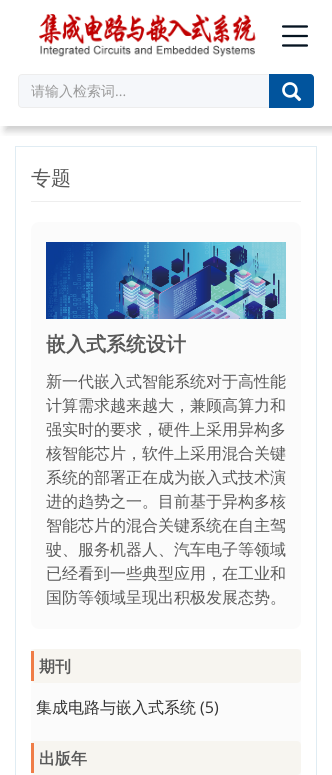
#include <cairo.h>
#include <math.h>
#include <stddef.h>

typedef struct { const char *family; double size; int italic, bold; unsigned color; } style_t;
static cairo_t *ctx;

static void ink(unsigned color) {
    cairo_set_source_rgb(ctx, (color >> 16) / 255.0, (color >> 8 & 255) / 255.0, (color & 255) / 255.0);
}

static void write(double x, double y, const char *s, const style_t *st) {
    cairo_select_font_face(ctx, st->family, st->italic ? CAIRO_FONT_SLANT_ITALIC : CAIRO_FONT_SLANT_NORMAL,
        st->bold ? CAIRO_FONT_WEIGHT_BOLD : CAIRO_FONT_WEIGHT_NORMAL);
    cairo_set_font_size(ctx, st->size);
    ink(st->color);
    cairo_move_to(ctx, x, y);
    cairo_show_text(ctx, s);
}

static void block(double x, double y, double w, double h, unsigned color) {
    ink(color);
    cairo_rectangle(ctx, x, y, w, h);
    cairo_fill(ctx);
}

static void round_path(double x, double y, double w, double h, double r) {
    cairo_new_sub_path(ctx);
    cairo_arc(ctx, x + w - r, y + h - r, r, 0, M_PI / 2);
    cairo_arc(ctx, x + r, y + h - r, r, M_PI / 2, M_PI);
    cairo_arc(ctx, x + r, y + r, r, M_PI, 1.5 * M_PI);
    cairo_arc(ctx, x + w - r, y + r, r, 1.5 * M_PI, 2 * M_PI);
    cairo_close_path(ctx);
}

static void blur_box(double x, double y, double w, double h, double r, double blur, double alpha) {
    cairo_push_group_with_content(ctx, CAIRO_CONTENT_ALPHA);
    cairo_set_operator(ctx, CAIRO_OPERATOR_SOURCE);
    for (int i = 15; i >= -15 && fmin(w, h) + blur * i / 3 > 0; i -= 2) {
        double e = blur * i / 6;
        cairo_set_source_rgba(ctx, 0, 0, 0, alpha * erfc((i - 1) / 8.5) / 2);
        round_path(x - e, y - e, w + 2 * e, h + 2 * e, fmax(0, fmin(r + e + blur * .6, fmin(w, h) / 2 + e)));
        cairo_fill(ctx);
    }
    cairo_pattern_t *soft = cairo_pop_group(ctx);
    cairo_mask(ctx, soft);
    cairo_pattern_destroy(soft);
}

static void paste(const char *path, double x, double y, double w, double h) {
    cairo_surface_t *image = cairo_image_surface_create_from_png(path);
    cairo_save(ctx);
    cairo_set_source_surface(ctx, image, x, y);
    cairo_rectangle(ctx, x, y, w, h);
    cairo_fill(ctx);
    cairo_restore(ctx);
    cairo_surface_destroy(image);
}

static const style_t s1 = {"WenQuanYi Zen Hei Medium", 14, 0, 0, 0x999999};
static const style_t s2 = {"Open Sans", 14, 0, 0, 0x999999};
static const style_t s3 = {"WenQuanYi Zen Hei Medium", 20, 0, 0, 0x595959};
static const style_t s4 = {"WenQuanYi Zen Hei", 20, 0, 1, 0x595959};
static const style_t s5 = {"WenQuanYi Zen Hei Medium", 16, 0, 0, 0x595959};
static const style_t s6 = {"WenQuanYi Zen Hei", 16, 0, 1, 0x595959};
static const style_t s7 = {"WenQuanYi Zen Hei Medium", 16, 0, 0, 0x333333};
static const style_t s8 = {"Open Sans", 16, 0, 0, 0x333333};

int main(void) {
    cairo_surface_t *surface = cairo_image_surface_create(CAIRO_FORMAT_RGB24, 332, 775);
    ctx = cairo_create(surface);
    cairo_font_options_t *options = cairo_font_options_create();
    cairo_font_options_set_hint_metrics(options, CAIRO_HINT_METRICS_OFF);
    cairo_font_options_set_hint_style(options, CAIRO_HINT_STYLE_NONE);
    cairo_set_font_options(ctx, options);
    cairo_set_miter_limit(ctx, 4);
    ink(0xffffff);
    cairo_paint(ctx);
    cairo_save(ctx);
    cairo_rectangle(ctx, 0, 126, 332, 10);
    cairo_clip(ctx);
    ink(0x000000);
    blur_box(5, 5, 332, 126, 0, 4, 0.2);
    cairo_restore(ctx);
    paste("pic1.png", 39, 14, 217, 43);
    paste("pic2.png", 282, 25, 26, 22);
    ink(0xf5f7fa);
    round_path(18.5, 74.5, 253, 33, 3.5);
    cairo_fill_preserve(ctx);
    ink(0xededed);
    cairo_set_line_width(ctx, 1);
    cairo_stroke(ctx);
    write(31, 96, "请输入检索词", &s1);
    write(115, 96, "...", &s2);
    ink(0x01549d);
    cairo_new_path(ctx);
    cairo_move_to(ctx, 269.5, 74.5);
    cairo_line_to(ctx, 310, 74.5);
    cairo_curve_to(ctx, 312, 74.5, 313.5, 76, 313.5, 78);
    cairo_line_to(ctx, 313.5, 104);
    cairo_curve_to(ctx, 313.5, 106, 312, 107.5, 310, 107.5);
    cairo_line_to(ctx, 269.5, 107.5);
    cairo_close_path(ctx);
    cairo_fill_preserve(ctx);
    cairo_stroke(ctx);
    paste("pic3.png", 282, 82, 20, 20);
    cairo_rectangle(ctx, 15.5, 146.5, 301, 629);
    ink(0xe0ecf3);
    cairo_stroke(ctx);
    block(31, 201, 270, 1, 0xeeeeee);
    write(31, 185, "专题", &s3);
    ink(0xfbfbfb);
    round_path(31, 222, 270, 407, 8);
    cairo_fill(ctx);
    paste("pic4.png", 46, 242, 240, 77);
    write(46, 351, "嵌入式系统设计", &s4);
    write(46, 387, "新一代嵌入式智能系统对于高性能", &s5);
    write(46, 411, "计算需求越来越大，兼顾高算力和", &s5);
    write(46, 435, "强实时的要求，硬件上采用异构多", &s5);
    write(46, 459, "核智能芯片，软件上采用混合关键", &s5);
    write(46, 483, "系统的部署正在成为嵌入式技术演", &s5);
    write(46, 507, "进的趋势之一。目前基于异构多核", &s5);
    write(46, 531, "智能芯片的混合关键系统在自主驾", &s5);
    write(46, 555, "驶、服务机器人、汽车电子等领域", &s5);
    write(46, 579, "已经看到一些典型应用，在工业和", &s5);
    write(46, 603, "国防等领域呈现出积极发展态势。", &s5);
    block(31, 649, 270, 126, 0xfbfbfb);
    ink(0xf7f5f0);
    round_path(31, 649, 270, 34, 4);
    cairo_fill(ctx);
    block(31, 651, 3, 30, 0xef7d47);
    write(39, 672, "期刊", &s6);
    write(36, 713, "集成电路与嵌入式系统", &s7);
    write(200, 713, "(5)", &s8);
    ink(0xf7f5f0);
    round_path(31, 741, 270, 34, 4);
    cairo_fill(ctx);
    block(31, 743, 3, 30, 0xef7d47);
    write(39, 764, "出版年", &s6);
    cairo_surface_write_to_png(surface, "screenshot.png");
    cairo_font_options_destroy(options);
    cairo_destroy(ctx);
    cairo_surface_destroy(surface);
    return 0;
}
